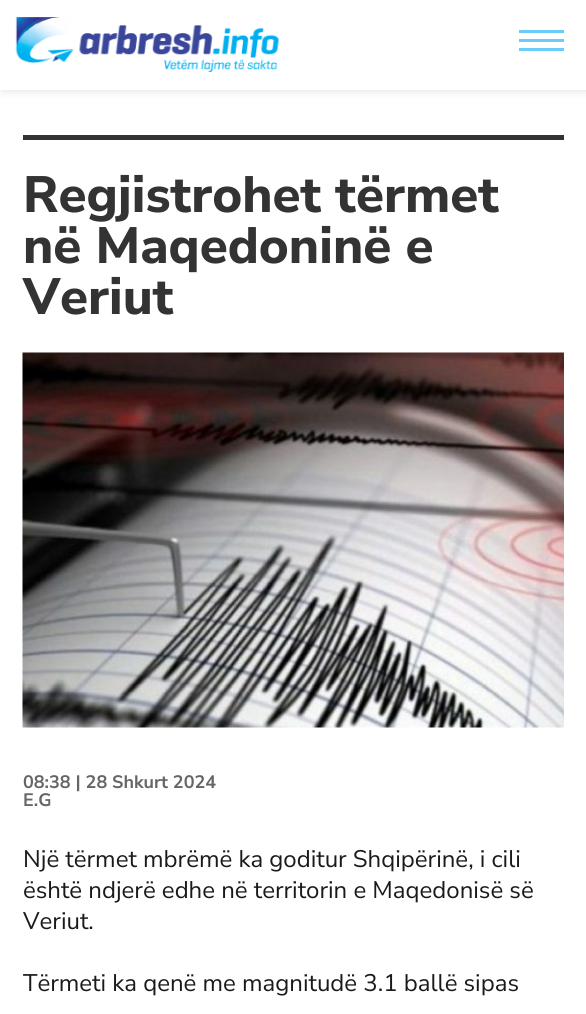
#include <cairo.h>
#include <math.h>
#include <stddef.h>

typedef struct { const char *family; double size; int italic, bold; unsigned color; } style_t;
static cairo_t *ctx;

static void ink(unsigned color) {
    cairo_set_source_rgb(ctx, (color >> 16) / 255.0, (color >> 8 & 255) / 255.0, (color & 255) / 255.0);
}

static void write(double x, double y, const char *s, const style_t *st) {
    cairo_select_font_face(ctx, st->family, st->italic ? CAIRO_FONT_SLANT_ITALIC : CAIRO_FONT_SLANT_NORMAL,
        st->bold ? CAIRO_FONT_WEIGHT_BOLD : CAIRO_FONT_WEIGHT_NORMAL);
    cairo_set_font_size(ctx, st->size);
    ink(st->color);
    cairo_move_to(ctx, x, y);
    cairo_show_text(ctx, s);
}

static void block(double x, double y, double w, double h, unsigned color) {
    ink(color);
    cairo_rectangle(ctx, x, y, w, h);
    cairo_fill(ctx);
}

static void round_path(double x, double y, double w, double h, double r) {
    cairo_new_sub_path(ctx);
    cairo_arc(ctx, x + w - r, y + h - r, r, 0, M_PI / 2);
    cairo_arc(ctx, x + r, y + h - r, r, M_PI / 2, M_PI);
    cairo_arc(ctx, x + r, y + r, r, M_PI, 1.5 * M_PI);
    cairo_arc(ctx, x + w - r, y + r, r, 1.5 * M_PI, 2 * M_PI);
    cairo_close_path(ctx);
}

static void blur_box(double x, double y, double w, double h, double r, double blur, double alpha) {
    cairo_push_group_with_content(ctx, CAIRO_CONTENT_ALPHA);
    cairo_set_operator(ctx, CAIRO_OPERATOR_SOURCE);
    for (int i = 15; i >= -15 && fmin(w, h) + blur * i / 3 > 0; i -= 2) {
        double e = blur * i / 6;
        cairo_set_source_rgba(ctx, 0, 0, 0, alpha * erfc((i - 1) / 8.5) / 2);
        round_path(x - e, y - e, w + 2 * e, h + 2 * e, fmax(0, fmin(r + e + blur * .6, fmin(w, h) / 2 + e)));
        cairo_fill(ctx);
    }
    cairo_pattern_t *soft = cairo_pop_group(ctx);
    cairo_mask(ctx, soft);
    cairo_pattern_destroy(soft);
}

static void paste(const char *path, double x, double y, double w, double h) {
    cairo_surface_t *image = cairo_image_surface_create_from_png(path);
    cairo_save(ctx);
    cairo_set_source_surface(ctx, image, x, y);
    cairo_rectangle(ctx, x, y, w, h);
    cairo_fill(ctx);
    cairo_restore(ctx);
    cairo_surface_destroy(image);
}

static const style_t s1 = {"Nunito Sans ExtraBold", 51, 0, 0, 0x333333};
static const style_t s2 = {"Nunito Sans", 18, 0, 1, 0x666666};
static const style_t s3 = {"Nunito Sans", 24, 0, 0, 0x1a1a1a};

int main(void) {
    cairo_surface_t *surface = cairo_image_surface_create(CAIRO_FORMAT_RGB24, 586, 1014);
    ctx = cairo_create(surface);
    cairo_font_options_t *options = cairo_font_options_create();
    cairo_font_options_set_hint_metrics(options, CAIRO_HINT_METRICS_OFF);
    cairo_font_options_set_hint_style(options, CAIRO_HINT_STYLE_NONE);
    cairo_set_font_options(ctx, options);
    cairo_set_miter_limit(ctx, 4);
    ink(0xffffff);
    cairo_paint(ctx);
    cairo_save(ctx);
    cairo_rectangle(ctx, 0, 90, 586, 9);
    cairo_clip(ctx);
    ink(0xdddddd);
    blur_box(2, 0, 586, 90, 0, 4.5, 1);
    cairo_restore(ctx);
    paste("pic1.png", 15, 17, 264, 55);
    block(519, 30, 45, 3, 0x68cbf8);
    block(519, 39, 45, 3, 0x68cbf8);
    block(519, 48, 45, 3, 0x68cbf8);
    block(23, 135, 541, 5, 0x333333);
    write(23, 212, "Regjistrohet tërmet", &s1);
    write(23, 263, "në Maqedoninë e", &s1);
    write(23, 314, "Veriut", &s1);
    paste("pic2.png", 22, 352, 542, 376);
    write(23, 788, "08:38 | 28 Shkurt 2024", &s2);
    write(23, 806, "E.G", &s2);
    write(23, 867, "Një tërmet mbrëmë ka goditur Shqipërinë, i cili", &s3);
    write(23, 898, "është ndjerë edhe në territorin e Maqedonisë së", &s3);
    write(23, 929, "Veriut.", &s3);
    write(23, 991, "Tërmeti ka qenë me magnitudë 3.1 ballë sipas", &s3);
    cairo_surface_write_to_png(surface, "screenshot.png");
    cairo_font_options_destroy(options);
    cairo_destroy(ctx);
    cairo_surface_destroy(surface);
    return 0;
}
